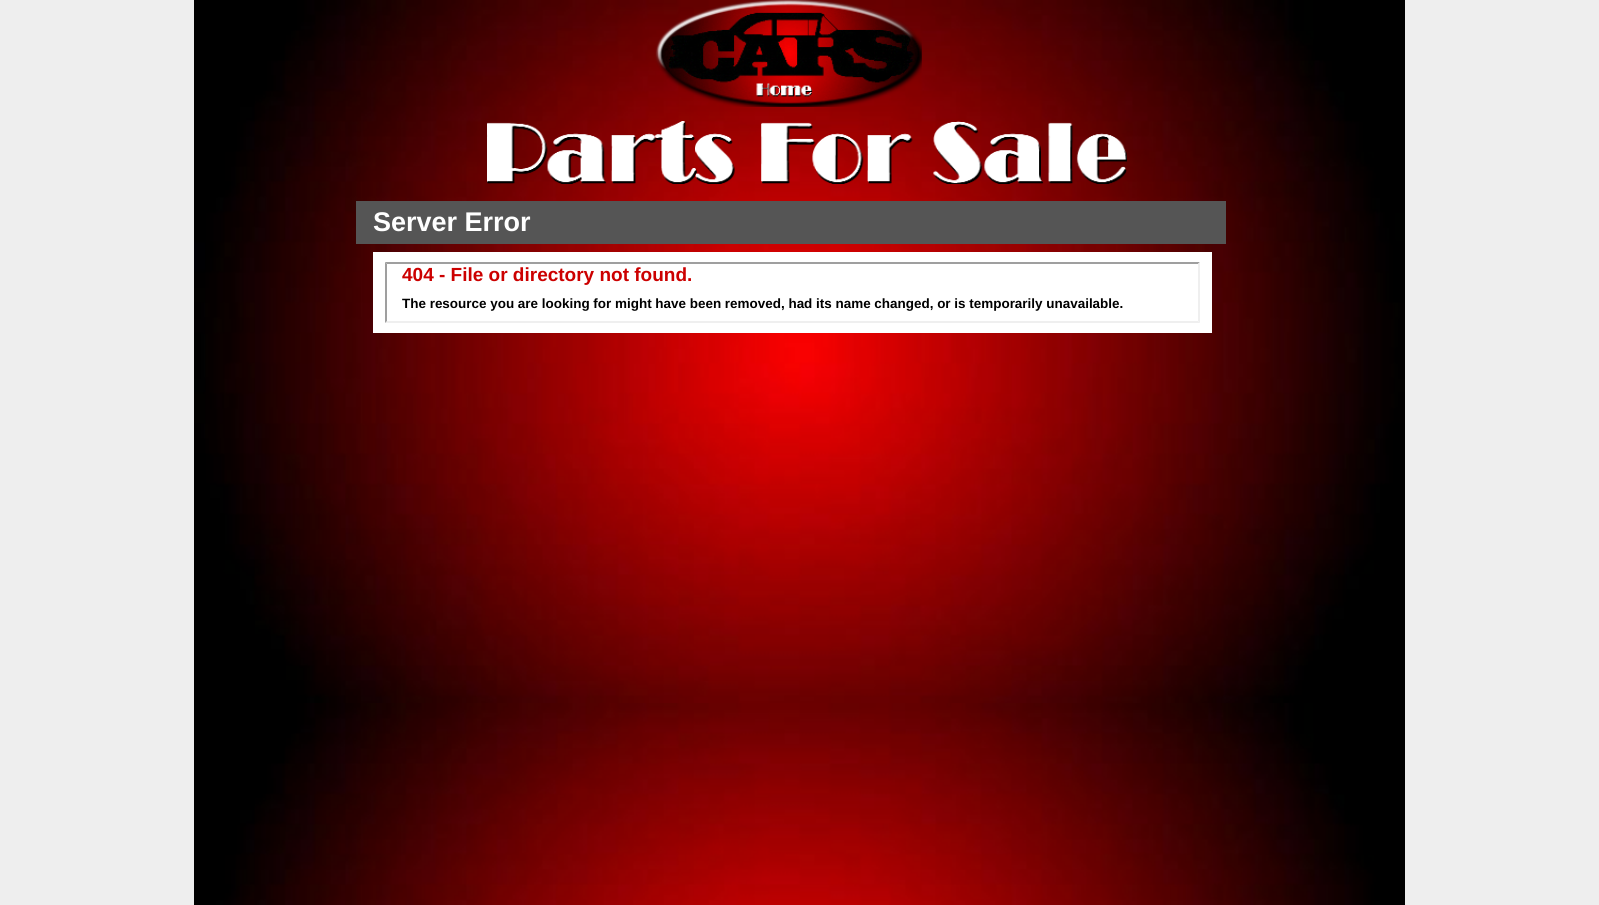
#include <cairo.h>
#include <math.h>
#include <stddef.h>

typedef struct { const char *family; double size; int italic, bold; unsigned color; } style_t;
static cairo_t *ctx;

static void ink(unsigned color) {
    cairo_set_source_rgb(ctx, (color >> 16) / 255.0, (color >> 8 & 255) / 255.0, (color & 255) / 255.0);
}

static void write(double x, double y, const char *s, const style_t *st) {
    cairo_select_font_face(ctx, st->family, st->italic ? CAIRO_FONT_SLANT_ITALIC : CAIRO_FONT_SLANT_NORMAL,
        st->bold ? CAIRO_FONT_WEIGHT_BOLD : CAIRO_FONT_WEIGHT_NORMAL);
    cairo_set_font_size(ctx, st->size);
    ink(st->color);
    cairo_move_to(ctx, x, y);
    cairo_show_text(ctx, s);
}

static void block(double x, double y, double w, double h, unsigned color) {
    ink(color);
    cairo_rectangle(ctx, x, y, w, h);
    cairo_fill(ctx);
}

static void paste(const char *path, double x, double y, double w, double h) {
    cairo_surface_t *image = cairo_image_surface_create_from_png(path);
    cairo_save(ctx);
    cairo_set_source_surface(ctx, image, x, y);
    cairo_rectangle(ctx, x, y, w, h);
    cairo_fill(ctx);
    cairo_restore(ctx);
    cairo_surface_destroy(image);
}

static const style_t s1 = {"Liberation Sans", 27, 0, 1, 0xffffff};
static const style_t s2 = {"Liberation Sans", 19, 0, 1, 0xcc0000};
static const style_t s3 = {"Liberation Sans", 13.45, 0, 1, 0x000000};

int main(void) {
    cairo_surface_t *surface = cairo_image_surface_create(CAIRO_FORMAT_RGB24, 1599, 905);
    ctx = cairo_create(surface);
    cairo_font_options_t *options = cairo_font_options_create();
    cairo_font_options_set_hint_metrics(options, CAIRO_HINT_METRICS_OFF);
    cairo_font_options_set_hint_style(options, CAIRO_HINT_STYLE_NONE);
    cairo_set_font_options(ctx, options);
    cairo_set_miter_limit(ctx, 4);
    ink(0xeeeeee);
    cairo_paint(ctx);
    paste("pic1.png", 194, 0, 1211, 703);
    paste("pic2.png", 655, 0, 267, 107);
    paste("pic3.png", 487, 121, 640, 63);
    block(356, 201, 870, 43, 0x555555);
    write(373, 231, "Server Error", &s1);
    block(373, 252, 839, 81, 0xffffff);
    ink(0x9f9f9f);
    cairo_new_path(ctx);
    cairo_move_to(ctx, 385, 262);
    cairo_line_to(ctx, 1200, 262);
    cairo_line_to(ctx, 1198, 264);
    cairo_line_to(ctx, 387, 264);
    cairo_close_path(ctx);
    cairo_fill(ctx);
    ink(0xefefef);
    cairo_new_path(ctx);
    cairo_move_to(ctx, 1200, 262);
    cairo_line_to(ctx, 1200, 323);
    cairo_line_to(ctx, 1198, 321);
    cairo_line_to(ctx, 1198, 264);
    cairo_close_path(ctx);
    cairo_fill(ctx);
    cairo_new_path(ctx);
    cairo_move_to(ctx, 1200, 323);
    cairo_line_to(ctx, 385, 323);
    cairo_line_to(ctx, 387, 321);
    cairo_line_to(ctx, 1198, 321);
    cairo_close_path(ctx);
    cairo_fill(ctx);
    ink(0x9f9f9f);
    cairo_new_path(ctx);
    cairo_move_to(ctx, 385, 323);
    cairo_line_to(ctx, 385, 262);
    cairo_line_to(ctx, 387, 264);
    cairo_line_to(ctx, 387, 321);
    cairo_close_path(ctx);
    cairo_fill(ctx);
    write(402, 281, "404 - File or directory not found.", &s2);
    write(402, 308, "The resource you are looking for might have been removed, had its name changed, or is temporarily unavailable.", &s3);
    paste("pic4.png", 194, 703, 1211, 202);
    cairo_surface_write_to_png(surface, "screenshot.png");
    cairo_font_options_destroy(options);
    cairo_destroy(ctx);
    cairo_surface_destroy(surface);
    return 0;
}
